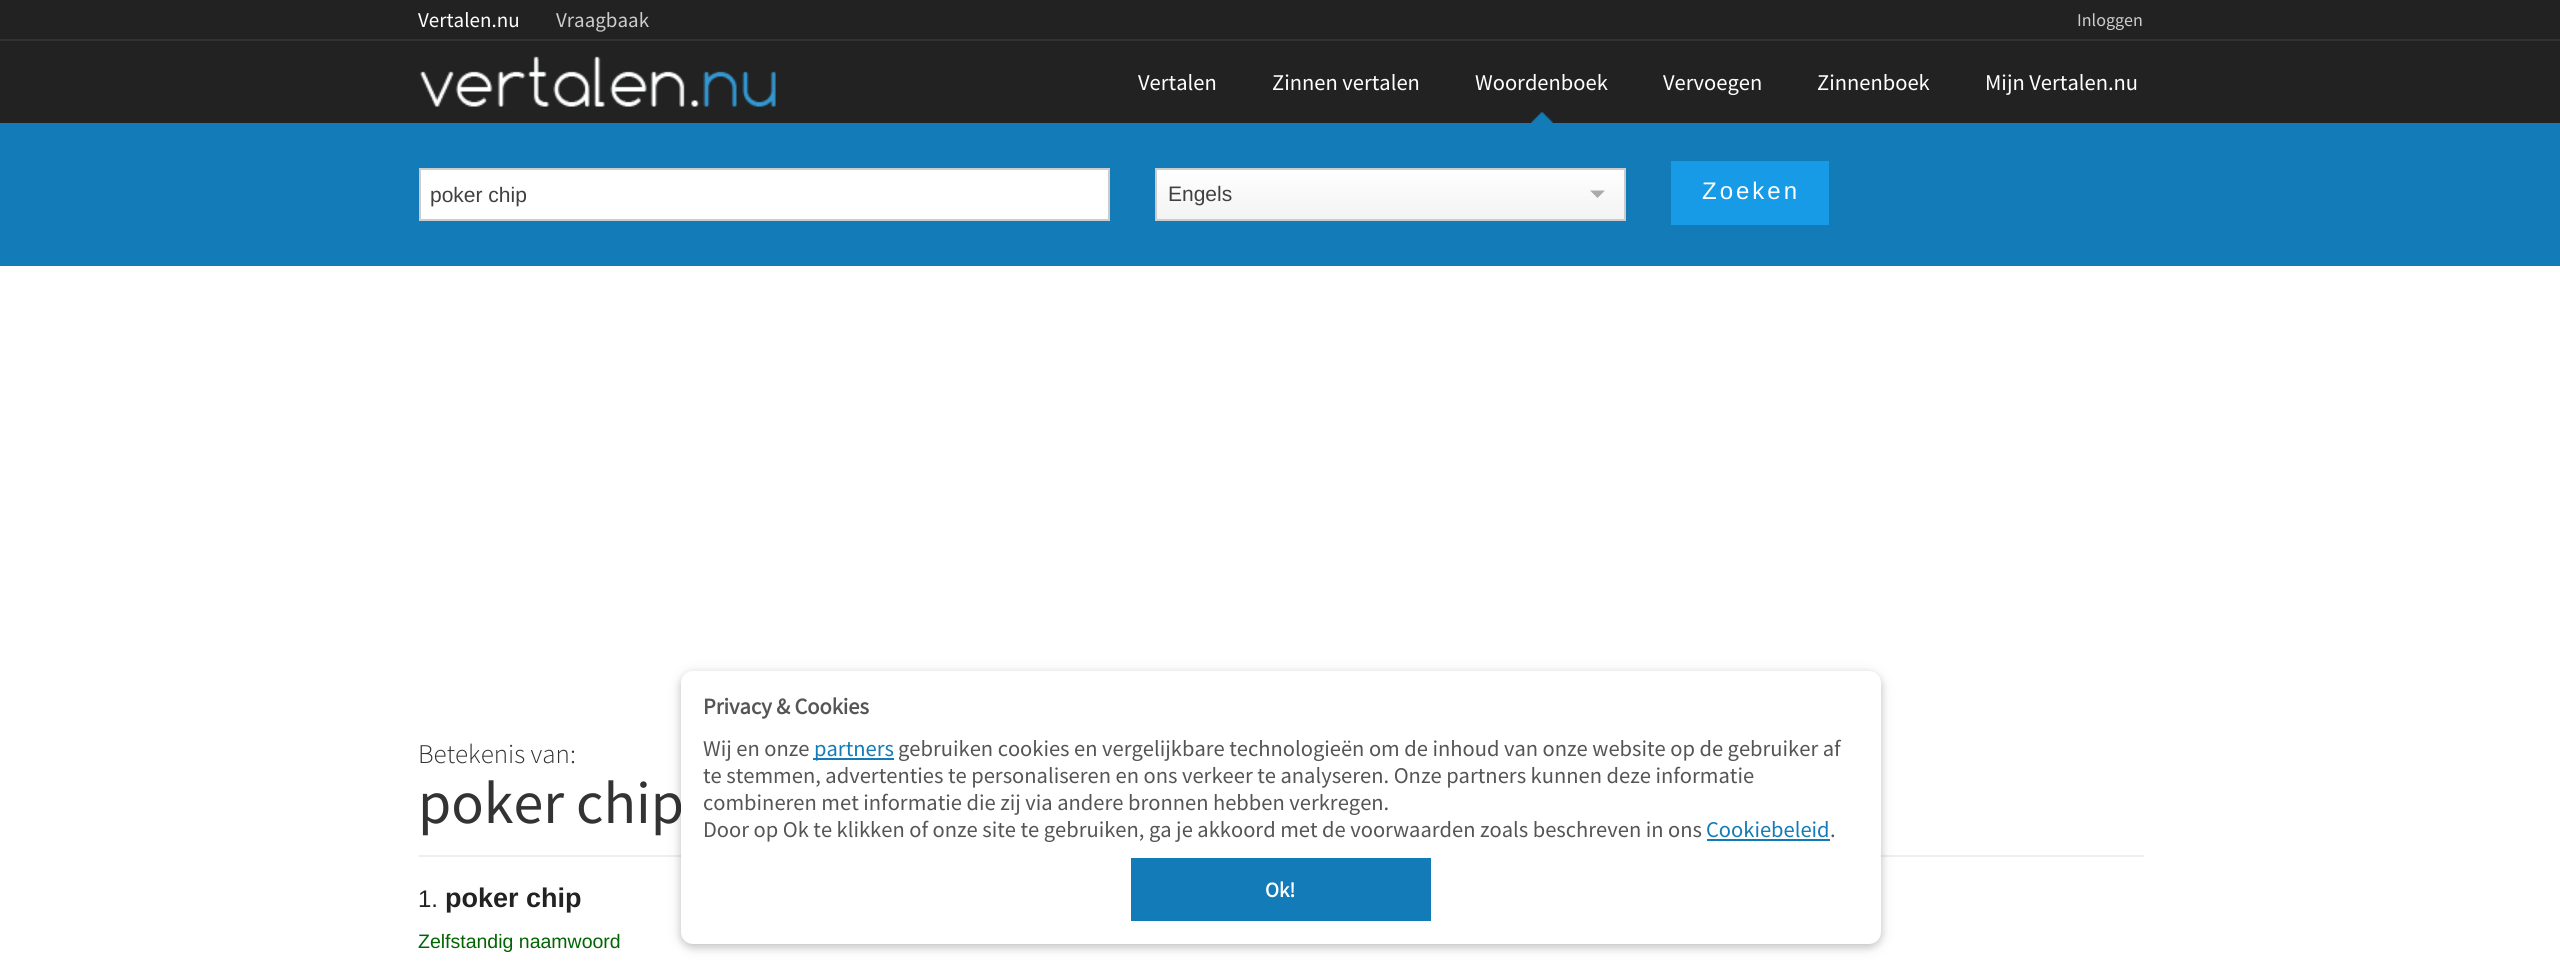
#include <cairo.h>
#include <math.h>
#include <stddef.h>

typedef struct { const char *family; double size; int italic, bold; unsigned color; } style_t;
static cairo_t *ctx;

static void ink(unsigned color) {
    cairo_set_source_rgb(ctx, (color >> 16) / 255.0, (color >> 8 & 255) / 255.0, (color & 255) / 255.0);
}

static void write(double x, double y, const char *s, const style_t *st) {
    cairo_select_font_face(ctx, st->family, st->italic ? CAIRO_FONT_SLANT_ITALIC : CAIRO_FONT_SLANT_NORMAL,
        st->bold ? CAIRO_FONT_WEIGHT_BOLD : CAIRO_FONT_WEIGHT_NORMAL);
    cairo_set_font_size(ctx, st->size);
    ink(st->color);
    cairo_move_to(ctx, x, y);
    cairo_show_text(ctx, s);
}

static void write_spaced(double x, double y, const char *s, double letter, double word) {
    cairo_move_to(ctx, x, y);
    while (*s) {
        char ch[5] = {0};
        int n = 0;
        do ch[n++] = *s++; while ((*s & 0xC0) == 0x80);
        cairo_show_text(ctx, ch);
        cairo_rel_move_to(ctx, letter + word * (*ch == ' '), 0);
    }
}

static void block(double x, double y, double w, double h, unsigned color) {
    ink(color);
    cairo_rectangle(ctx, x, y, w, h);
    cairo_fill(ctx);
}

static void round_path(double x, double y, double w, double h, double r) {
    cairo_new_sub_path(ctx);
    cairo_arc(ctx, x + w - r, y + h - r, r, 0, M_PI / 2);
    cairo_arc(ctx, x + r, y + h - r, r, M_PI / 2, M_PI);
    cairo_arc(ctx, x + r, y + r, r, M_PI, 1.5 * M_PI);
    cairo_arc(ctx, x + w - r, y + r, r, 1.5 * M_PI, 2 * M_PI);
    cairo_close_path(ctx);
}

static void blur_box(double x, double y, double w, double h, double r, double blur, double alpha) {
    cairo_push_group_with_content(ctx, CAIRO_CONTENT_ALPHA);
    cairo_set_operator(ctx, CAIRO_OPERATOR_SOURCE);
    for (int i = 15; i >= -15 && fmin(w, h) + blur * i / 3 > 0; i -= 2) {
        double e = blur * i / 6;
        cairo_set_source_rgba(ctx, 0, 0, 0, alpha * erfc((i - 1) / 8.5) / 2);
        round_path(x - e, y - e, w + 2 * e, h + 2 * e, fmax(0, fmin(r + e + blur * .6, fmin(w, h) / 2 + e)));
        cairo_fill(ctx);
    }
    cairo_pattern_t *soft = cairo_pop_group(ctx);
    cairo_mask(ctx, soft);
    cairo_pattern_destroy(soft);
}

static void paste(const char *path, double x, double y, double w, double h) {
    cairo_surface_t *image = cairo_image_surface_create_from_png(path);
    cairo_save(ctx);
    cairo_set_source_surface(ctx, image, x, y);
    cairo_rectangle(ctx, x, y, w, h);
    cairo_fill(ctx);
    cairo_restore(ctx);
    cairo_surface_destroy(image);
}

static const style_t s1 = {"Source Sans Pro", 21, 0, 0, 0xffffff};
static const style_t s2 = {"Source Sans Pro", 21, 0, 0, 0xcccccc};
static const style_t s3 = {"Source Sans Pro", 18, 0, 0, 0xcccccc};
static const style_t s4 = {"Source Sans Pro", 22.5, 0, 0, 0xffffff};
static const style_t s5 = {"Liberation Sans", 21, 0, 0, 0x404040};
static const style_t s6 = {"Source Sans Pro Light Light", 27, 0, 0, 0x333333};
static const style_t s7 = {"Source Sans Pro", 60, 0, 0, 0x333333};
static const style_t s8 = {"Liberation Sans", 24, 0, 0, 0x222222};
static const style_t s9 = {"Liberation Sans", 27, 0, 1, 0x222222};
static const style_t s10 = {"Liberation Sans", 19.5, 0, 0, 0x006400};
static const style_t s11 = {"Source Sans Pro", 22.5, 0, 1, 0x555555};
static const style_t s12 = {"Source Sans Pro", 22.5, 0, 0, 0x555555};
static const style_t s13 = {"Source Sans Pro", 22.5, 0, 0, 0x137cb8};
static const style_t s14 = {"Source Sans Pro", 21, 0, 1, 0xffffff};

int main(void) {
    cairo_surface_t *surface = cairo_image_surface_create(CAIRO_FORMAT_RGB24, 2560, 965);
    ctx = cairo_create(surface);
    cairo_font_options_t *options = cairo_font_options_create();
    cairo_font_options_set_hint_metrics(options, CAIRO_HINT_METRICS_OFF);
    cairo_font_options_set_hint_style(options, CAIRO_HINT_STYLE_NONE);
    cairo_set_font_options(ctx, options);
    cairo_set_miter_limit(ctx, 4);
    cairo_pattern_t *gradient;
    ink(0xffffff);
    cairo_paint(ctx);
    block(0, 0, 2560, 123, 0x222222);
    block(0, 39, 2560, 2, 0x333333);
    write(418, 27, "Vertalen.nu", &s1);
    write(556, 27, "Vraagbaak", &s2);
    write(2077, 26, "Inloggen", &s3);
    paste("pic1.png", 419, 56, 357, 51);
    write(1138, 90, "Vertalen", &s4);
    write(1272, 90, "Zinnen vertalen", &s4);
    paste("pic2.png", 1531, 112, 22, 11);
    write(1475, 90, "Woordenboek", &s4);
    write(1663, 90, "Vervoegen", &s4);
    write(1817, 90, "Zinnenboek", &s4);
    write(1985, 90, "Mijn Vertalen.nu", &s4);
    block(0, 123, 2560, 143, 0x137cb8);
    ink(0xffffff);
    cairo_rectangle(ctx, 420, 169, 689, 51);
    cairo_fill_preserve(ctx);
    ink(0xcccccc);
    cairo_stroke(ctx);
    write(430, 202, "poker chip", &s5);
    gradient = cairo_pattern_create_linear(1391, 169, 1391, 219);
    cairo_pattern_add_color_stop_rgba(gradient, 0, 1, 1, 1, 1);
    cairo_pattern_add_color_stop_rgba(gradient, 1, 0.953, 0.953, 0.953, 1);
    cairo_set_source(ctx, gradient);
    cairo_pattern_destroy(gradient);
    cairo_rectangle(ctx, 1157, 170, 467, 49);
    cairo_fill(ctx);
    cairo_rectangle(ctx, 1156, 169, 469, 51);
    ink(0xcccccc);
    cairo_stroke(ctx);
    write(1168, 201, "Engels", &s5);
    ink(0xaaaaaa);
    cairo_new_path(ctx);
    cairo_move_to(ctx, 1590, 190.5);
    cairo_line_to(ctx, 1605, 190.5);
    cairo_line_to(ctx, 1597.5, 198);
    cairo_close_path(ctx);
    cairo_fill(ctx);
    block(1671, 161, 158, 64, 0x189be6);
    cairo_set_font_size(ctx, 24);
    ink(0xffffff);
    write_spaced(1702, 199, "Zoeken", 3, 0);
    write(418, 763, "Betekenis van:", &s6);
    write(418, 823, "poker chip", &s7);
    block(419, 855, 1725, 2, 0xeeeeee);
    write(418, 907, "1.", &s8);
    write(445, 907, "poker chip", &s9);
    write(418, 948, "Zelfstandig naamwoord", &s10);
    ink(0x000000);
    blur_box(681, 674, 1200, 273, 12, 7.5, 0.12);
    blur_box(681, 674, 1200, 273, 12, 4, 0.16);
    ink(0xffffff);
    round_path(681, 671, 1200, 273, 12);
    cairo_fill(ctx);
    write(703, 714, "Privacy & Cookies", &s11);
    write(703, 756, "Wij en onze", &s12);
    block(813, 758, 81, 2, 0x137cb8);
    write(814, 756, "partners", &s13);
    write(898, 756, "gebruiken cookies en vergelijkbare technologieën om de inhoud van onze website op de gebruiker af", &s12);
    write(703, 783, "te stemmen, advertenties te personaliseren en ons verkeer te analyseren. Onze partners kunnen deze informatie", &s12);
    write(703, 810, "combineren met informatie die zij via andere bronnen hebben verkregen.", &s12);
    write(703, 837, "Door op Ok te klikken of onze site te gebruiken, ga je akkoord met de voorwaarden zoals beschreven in ons", &s12);
    write(1706, 837, "Cookiebeleid", &s13);
    block(1707, 839, 123, 2, 0x137cb8);
    write(1830, 837, ".", &s12);
    block(1131, 858, 300, 63, 0x137cb8);
    write(1265, 897, "Ok!", &s14);
    cairo_surface_write_to_png(surface, "screenshot.png");
    cairo_font_options_destroy(options);
    cairo_destroy(ctx);
    cairo_surface_destroy(surface);
    return 0;
}
